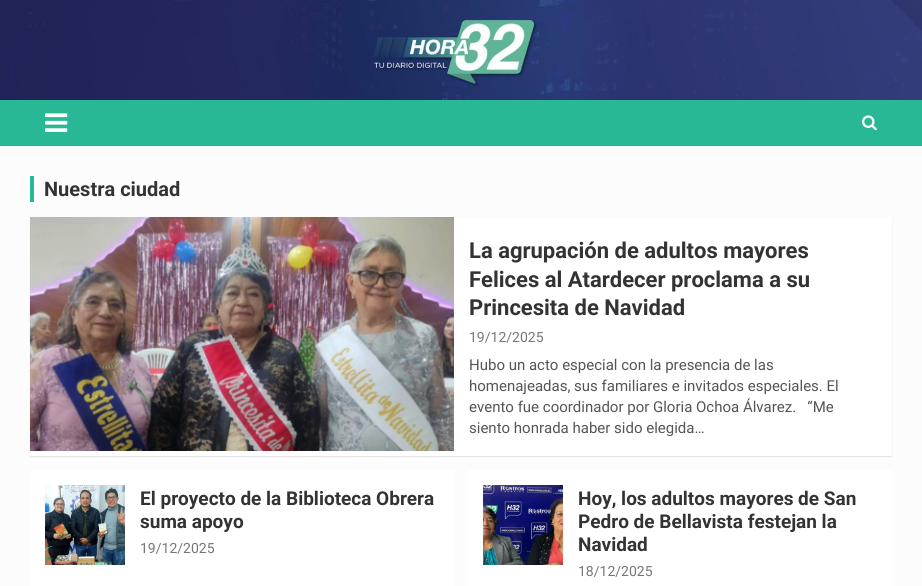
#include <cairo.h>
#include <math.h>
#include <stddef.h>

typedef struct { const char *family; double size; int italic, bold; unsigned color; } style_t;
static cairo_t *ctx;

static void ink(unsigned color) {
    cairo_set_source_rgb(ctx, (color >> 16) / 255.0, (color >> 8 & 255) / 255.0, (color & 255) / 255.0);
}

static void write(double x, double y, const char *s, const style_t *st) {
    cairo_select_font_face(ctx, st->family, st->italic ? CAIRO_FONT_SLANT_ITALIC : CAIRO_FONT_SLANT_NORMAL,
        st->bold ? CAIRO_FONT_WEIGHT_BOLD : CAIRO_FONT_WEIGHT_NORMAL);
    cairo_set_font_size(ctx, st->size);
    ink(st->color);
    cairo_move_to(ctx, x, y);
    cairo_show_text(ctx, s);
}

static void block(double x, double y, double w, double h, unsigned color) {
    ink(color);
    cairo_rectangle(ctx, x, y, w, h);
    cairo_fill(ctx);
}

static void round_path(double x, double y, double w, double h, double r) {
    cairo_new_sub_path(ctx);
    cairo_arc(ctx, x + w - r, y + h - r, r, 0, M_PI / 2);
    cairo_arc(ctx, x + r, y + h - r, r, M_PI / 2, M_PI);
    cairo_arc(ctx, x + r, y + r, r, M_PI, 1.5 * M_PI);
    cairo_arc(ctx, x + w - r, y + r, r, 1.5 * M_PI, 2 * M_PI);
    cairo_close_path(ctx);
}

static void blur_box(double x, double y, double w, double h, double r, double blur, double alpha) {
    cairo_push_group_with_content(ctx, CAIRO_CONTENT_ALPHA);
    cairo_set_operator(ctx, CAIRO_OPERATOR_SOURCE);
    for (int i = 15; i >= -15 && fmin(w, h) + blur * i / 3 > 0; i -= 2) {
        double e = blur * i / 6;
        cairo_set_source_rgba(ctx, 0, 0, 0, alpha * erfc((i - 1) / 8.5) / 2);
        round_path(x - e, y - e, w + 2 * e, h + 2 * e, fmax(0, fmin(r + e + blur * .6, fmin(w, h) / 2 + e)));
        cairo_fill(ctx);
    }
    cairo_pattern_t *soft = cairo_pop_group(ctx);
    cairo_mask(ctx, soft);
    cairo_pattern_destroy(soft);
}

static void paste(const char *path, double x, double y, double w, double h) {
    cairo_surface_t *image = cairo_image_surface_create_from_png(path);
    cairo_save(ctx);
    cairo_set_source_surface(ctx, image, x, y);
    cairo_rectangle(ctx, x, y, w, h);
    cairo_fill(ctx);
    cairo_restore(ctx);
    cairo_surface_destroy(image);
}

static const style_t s1 = {"Roboto", 20, 0, 1, 0x333333};
static const style_t s2 = {"Roboto", 22, 0, 1, 0x333333};
static const style_t s3 = {"Roboto", 14, 0, 0, 0x777777};
static const style_t s4 = {"Roboto", 15, 0, 0, 0x555555};
static const style_t s5 = {"Roboto", 19, 0, 1, 0x333333};

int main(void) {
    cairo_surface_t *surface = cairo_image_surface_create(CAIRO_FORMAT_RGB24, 922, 586);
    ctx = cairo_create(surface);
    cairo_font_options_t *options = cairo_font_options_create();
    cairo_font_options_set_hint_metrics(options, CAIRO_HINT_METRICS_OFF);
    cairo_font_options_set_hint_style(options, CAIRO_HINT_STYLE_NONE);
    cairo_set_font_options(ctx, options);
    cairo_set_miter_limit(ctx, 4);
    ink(0xfcfcfc);
    cairo_paint(ctx);
    paste("pic1.png", 0, 0, 922, 100);
    block(0, 100, 922, 46, 0x28b895);
    paste("pic2.png", 45, 113, 23, 19);
    paste("pic3.png", 862, 115, 15, 16);
    block(30, 176, 4, 26, 0x28b895);
    write(44, 196, "Nuestra ciudad", &s1);
    ink(0x000000);
    blur_box(30, 218, 862, 239, 0, 0.5, 0.1);
    block(30, 217, 862, 239, 0xffffff);
    paste("pic4.png", 30, 217, 424, 234);
    write(469, 258, "La agrupación de adultos mayores", &s2);
    write(469, 287, "Felices al Atardecer proclama a su", &s2);
    write(469, 315, "Princesita de Navidad", &s2);
    write(469, 342, "19/12/2025", &s3);
    write(469, 370, "Hubo un acto especial con la presencia de las", &s4);
    write(469, 391, "homenajeadas, sus familiares e invitados especiales. El", &s4);
    write(469, 412, "evento fue coordinador por Gloria Ochoa Álvarez.   “Me", &s4);
    write(469, 433, "siento honrada haber sido elegida…", &s4);
    block(30, 470, 424, 116, 0xffffff);
    paste("pic5.png", 45, 485, 80, 80);
    write(140, 505, "El proyecto de la Biblioteca Obrera", &s5);
    write(140, 528, "suma apoyo", &s5);
    write(140, 553, "19/12/2025", &s3);
    block(468, 470, 424, 116, 0xffffff);
    paste("pic6.png", 483, 485, 80, 80);
    write(578, 505, "Hoy, los adultos mayores de San", &s5);
    write(578, 528, "Pedro de Bellavista festejan la", &s5);
    write(578, 551, "Navidad", &s5);
    write(578, 576, "18/12/2025", &s3);
    cairo_surface_write_to_png(surface, "screenshot.png");
    cairo_font_options_destroy(options);
    cairo_destroy(ctx);
    cairo_surface_destroy(surface);
    return 0;
}
